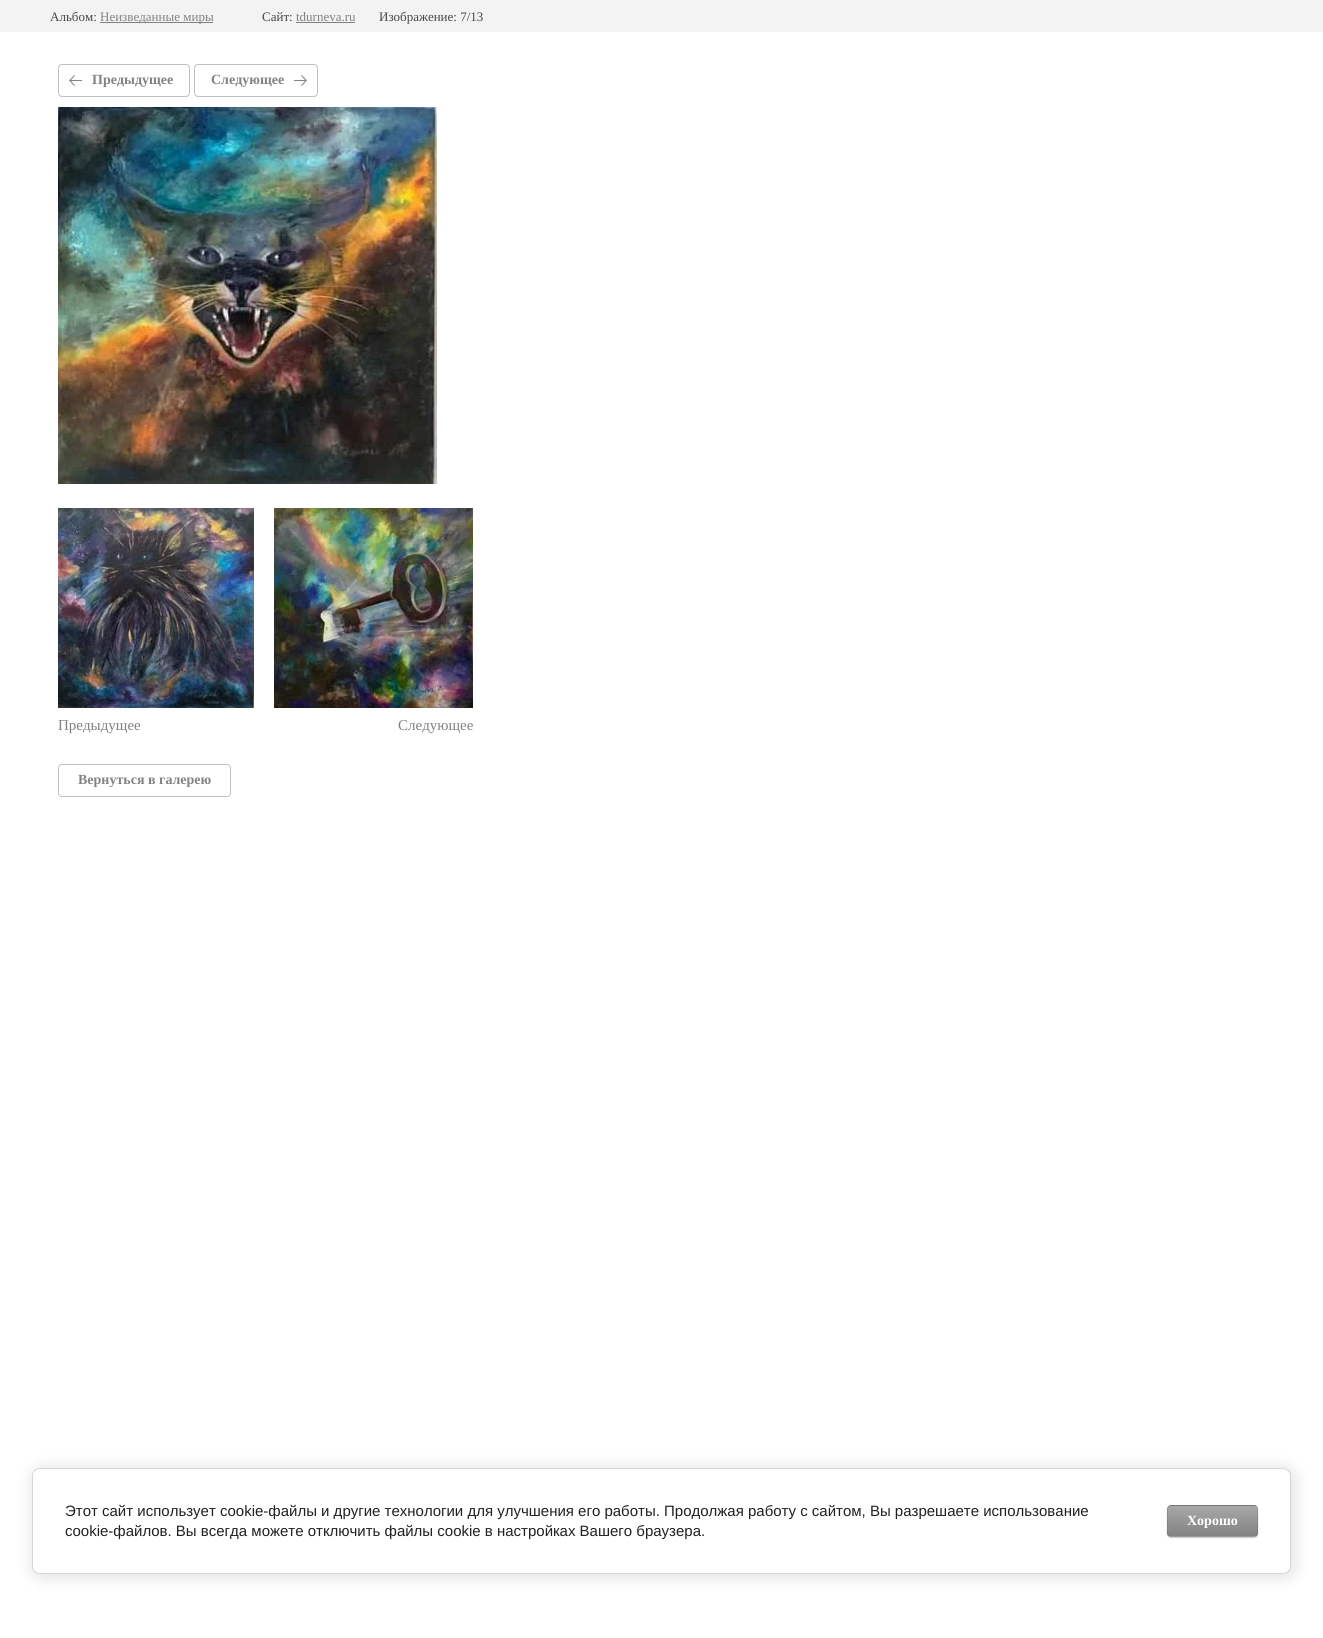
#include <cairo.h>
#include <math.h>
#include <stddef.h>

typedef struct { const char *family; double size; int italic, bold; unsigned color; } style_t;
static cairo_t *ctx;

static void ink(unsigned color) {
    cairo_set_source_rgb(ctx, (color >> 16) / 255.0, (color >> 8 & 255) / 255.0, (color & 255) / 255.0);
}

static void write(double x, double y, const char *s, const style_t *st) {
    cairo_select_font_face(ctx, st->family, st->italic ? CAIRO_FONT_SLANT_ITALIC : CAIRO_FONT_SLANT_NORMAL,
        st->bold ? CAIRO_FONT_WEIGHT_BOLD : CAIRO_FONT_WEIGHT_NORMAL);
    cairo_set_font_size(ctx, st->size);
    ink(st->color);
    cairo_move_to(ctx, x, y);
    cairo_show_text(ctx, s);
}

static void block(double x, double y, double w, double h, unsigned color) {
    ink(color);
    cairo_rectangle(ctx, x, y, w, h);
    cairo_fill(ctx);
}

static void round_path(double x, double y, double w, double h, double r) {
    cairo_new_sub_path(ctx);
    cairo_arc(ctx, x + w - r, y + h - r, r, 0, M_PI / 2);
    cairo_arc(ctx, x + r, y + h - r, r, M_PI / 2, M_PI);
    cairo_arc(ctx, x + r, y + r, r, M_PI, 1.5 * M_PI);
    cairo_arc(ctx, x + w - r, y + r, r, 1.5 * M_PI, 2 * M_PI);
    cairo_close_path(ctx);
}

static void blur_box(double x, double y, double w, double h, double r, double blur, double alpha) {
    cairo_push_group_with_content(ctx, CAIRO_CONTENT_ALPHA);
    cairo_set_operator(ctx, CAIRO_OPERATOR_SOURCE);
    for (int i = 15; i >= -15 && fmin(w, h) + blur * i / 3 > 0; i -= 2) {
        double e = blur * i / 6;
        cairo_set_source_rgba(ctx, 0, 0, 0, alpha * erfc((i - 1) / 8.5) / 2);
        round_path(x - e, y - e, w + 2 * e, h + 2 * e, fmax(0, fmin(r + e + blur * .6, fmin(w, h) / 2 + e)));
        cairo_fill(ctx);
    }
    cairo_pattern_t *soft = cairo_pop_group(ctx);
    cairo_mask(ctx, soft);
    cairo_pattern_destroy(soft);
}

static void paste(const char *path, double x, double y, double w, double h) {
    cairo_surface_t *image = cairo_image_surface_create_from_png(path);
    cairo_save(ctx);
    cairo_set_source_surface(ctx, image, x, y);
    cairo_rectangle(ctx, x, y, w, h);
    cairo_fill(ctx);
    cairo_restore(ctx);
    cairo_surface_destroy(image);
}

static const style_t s1 = {"Liberation Serif", 13, 0, 0, 0x484848};
static const style_t s2 = {"Liberation Serif", 13, 0, 0, 0x828282};
static const style_t s3 = {"Liberation Serif", 14, 0, 1, 0x828282};
static const style_t s4 = {"Liberation Serif", 15, 0, 0, 0x828282};
static const style_t s5 = {"Liberation Sans", 15, 0, 0, 0x212121};
static const style_t s6 = {"Liberation Serif", 14, 0, 1, 0xffffff};

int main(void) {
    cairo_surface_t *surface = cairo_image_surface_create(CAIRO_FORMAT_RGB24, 1323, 1638);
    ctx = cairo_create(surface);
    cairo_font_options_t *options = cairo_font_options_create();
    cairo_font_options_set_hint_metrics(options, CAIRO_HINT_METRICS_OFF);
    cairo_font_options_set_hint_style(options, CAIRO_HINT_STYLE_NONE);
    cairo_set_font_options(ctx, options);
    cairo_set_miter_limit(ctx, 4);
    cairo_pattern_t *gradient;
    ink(0xffffff);
    cairo_paint(ctx);
    block(0, 0, 1323, 32, 0xf3f3f3);
    write(50, 21, "Альбом:", &s1);
    block(100, 22, 113, 1, 0x828282);
    write(100, 21, "Неизведанные миры", &s2);
    write(262, 21, "Сайт:", &s1);
    write(296, 21, "tdurneva.ru", &s2);
    block(296, 22, 59, 1, 0x828282);
    write(379, 21, "Изображение: 7/13", &s1);
    round_path(58.5, 64.5, 131, 32, 3.5);
    ink(0xc1c1c1);
    cairo_set_line_width(ctx, 1);
    cairo_stroke(ctx);
    paste("pic1.png", 69, 75, 13, 11);
    write(92, 84, "Предыдущее", &s3);
    round_path(194.5, 64.5, 123, 32, 3.5);
    ink(0xc1c1c1);
    cairo_stroke(ctx);
    write(211, 84, "Следующее", &s3);
    paste("pic2.png", 294, 75, 13, 11);
    paste("pic3.png", 58, 107, 379, 377);
    paste("pic4.png", 58, 508, 196, 200);
    write(58, 730, "Предыдущее", &s4);
    paste("pic5.png", 274, 508, 199, 200);
    write(398, 730, "Следующее", &s4);
    round_path(58.5, 764.5, 172, 32, 3.5);
    ink(0xc1c1c1);
    cairo_stroke(ctx);
    write(78, 784, "Вернуться в галерею", &s3);
    ink(0x000000);
    blur_box(34, 1470, 1259, 106, 8, 9, 0.14);
    ink(0xffffff);
    round_path(32.5, 1468.5, 1258, 105, 7.5);
    cairo_fill_preserve(ctx);
    ink(0xd6d6d6);
    cairo_stroke(ctx);
    write(65, 1516, "Этот сайт использует cookie-файлы и другие технологии для улучшения его работы. Продолжая работу с сайтом, Вы разрешаете использование", &s5);
    write(65, 1536, "cookie-файлов. Вы всегда можете отключить файлы cookie в настройках Вашего браузера.", &s5);
    ink(0x000000);
    blur_box(1167, 1506, 91, 32, 4, 0.5, 0.2);
    cairo_save(ctx);
    round_path(1167, 1505, 91, 32, 4);
    cairo_clip(ctx);
    gradient = cairo_pattern_create_linear(1213, 1476, 1213, 1506);
    cairo_pattern_add_color_stop_rgba(gradient, 0, 0.659, 0.659, 0.659, 1);
    cairo_pattern_add_color_stop_rgba(gradient, 1, 0.51, 0.51, 0.51, 1);
    cairo_set_source(ctx, gradient);
    cairo_pattern_destroy(gradient);
    cairo_rectangle(ctx, 1167, 1505, 91, 1);
    cairo_fill(ctx);
    gradient = cairo_pattern_create_linear(1213, 1506, 1213, 1536);
    cairo_pattern_add_color_stop_rgba(gradient, 0, 0.659, 0.659, 0.659, 1);
    cairo_pattern_add_color_stop_rgba(gradient, 1, 0.51, 0.51, 0.51, 1);
    cairo_set_source(ctx, gradient);
    cairo_pattern_destroy(gradient);
    cairo_rectangle(ctx, 1167, 1506, 91, 30);
    cairo_fill(ctx);
    gradient = cairo_pattern_create_linear(1213, 1536, 1213, 1566);
    cairo_pattern_add_color_stop_rgba(gradient, 0, 0.659, 0.659, 0.659, 1);
    cairo_pattern_add_color_stop_rgba(gradient, 1, 0.51, 0.51, 0.51, 1);
    cairo_set_source(ctx, gradient);
    cairo_pattern_destroy(gradient);
    cairo_rectangle(ctx, 1167, 1536, 91, 1);
    cairo_fill(ctx);
    cairo_restore(ctx);
    round_path(1167.5, 1505.5, 90, 31, 3.5);
    cairo_set_source_rgba(ctx, 0, 0, 0, 0.1);
    cairo_stroke(ctx);
    write(1187, 1525, "Хорошо", &s6);
    cairo_surface_write_to_png(surface, "screenshot.png");
    cairo_font_options_destroy(options);
    cairo_destroy(ctx);
    cairo_surface_destroy(surface);
    return 0;
}
